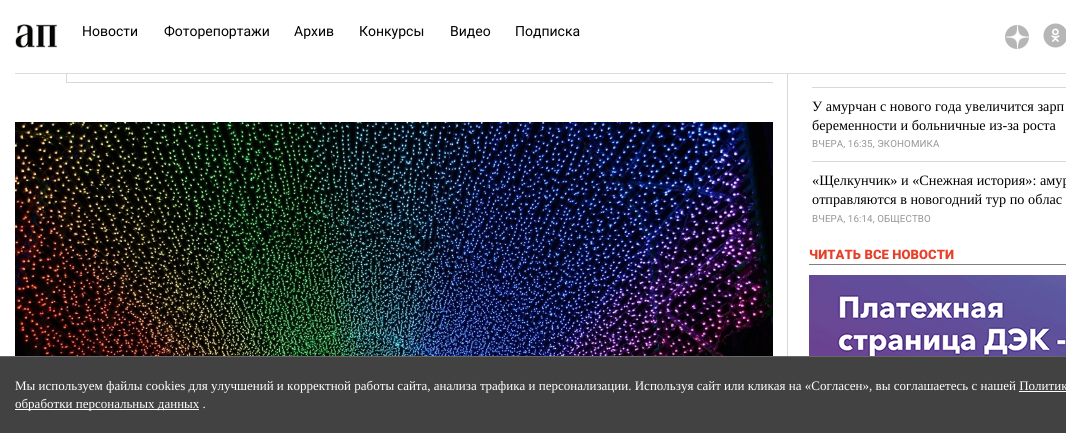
#include <cairo.h>
#include <math.h>
#include <stddef.h>

typedef struct { const char *family; double size; int italic, bold; unsigned color; } style_t;
static cairo_t *ctx;

static void ink(unsigned color) {
    cairo_set_source_rgb(ctx, (color >> 16) / 255.0, (color >> 8 & 255) / 255.0, (color & 255) / 255.0);
}

static void write(double x, double y, const char *s, const style_t *st) {
    cairo_select_font_face(ctx, st->family, st->italic ? CAIRO_FONT_SLANT_ITALIC : CAIRO_FONT_SLANT_NORMAL,
        st->bold ? CAIRO_FONT_WEIGHT_BOLD : CAIRO_FONT_WEIGHT_NORMAL);
    cairo_set_font_size(ctx, st->size);
    ink(st->color);
    cairo_move_to(ctx, x, y);
    cairo_show_text(ctx, s);
}

static void write_spaced(double x, double y, const char *s, double letter, double word) {
    cairo_move_to(ctx, x, y);
    while (*s) {
        char ch[5] = {0};
        int n = 0;
        do ch[n++] = *s++; while ((*s & 0xC0) == 0x80);
        cairo_show_text(ctx, ch);
        cairo_rel_move_to(ctx, letter + word * (*ch == ' '), 0);
    }
}

static void block(double x, double y, double w, double h, unsigned color) {
    ink(color);
    cairo_rectangle(ctx, x, y, w, h);
    cairo_fill(ctx);
}

static void paste(const char *path, double x, double y, double w, double h) {
    cairo_surface_t *image = cairo_image_surface_create_from_png(path);
    cairo_save(ctx);
    cairo_set_source_surface(ctx, image, x, y);
    cairo_rectangle(ctx, x, y, w, h);
    cairo_fill(ctx);
    cairo_restore(ctx);
    cairo_surface_destroy(image);
}

static const style_t s1 = {"Roboto", 14, 0, 0, 0x000000};
static const style_t s2 = {"Liberation Serif", 14.25, 0, 0, 0x000000};
static const style_t s3 = {"Liberation Serif", 13, 0, 0, 0xffffff};

int main(void) {
    cairo_surface_t *surface = cairo_image_surface_create(CAIRO_FORMAT_RGB24, 1066, 433);
    ctx = cairo_create(surface);
    cairo_font_options_t *options = cairo_font_options_create();
    cairo_font_options_set_hint_metrics(options, CAIRO_HINT_METRICS_OFF);
    cairo_font_options_set_hint_style(options, CAIRO_HINT_STYLE_NONE);
    cairo_set_font_options(ctx, options);
    cairo_set_miter_limit(ctx, 4);
    ink(0xffffff);
    cairo_paint(ctx);
    ink(0xd8d8d8);
    cairo_new_path(ctx);
    cairo_move_to(ctx, 67, 55);
    cairo_line_to(ctx, 67, 83);
    cairo_line_to(ctx, 66, 83);
    cairo_line_to(ctx, 66, 57);
    cairo_close_path(ctx);
    cairo_fill(ctx);
    block(66, 55, 1, 19, 0xffffff);
    block(15, 73, 1051, 1, 0xdbdbdb);
    paste("pic1.png", 15, 24, 42, 24);
    write(82, 36, "Новости", &s1);
    write(164, 36, "Фоторепортажи", &s1);
    write(294, 36, "Архив", &s1);
    write(359, 36, "Конкурсы", &s1);
    write(450, 36, "Видео", &s1);
    write(515, 36, "Подписка", &s1);
    ink(0xb6b6b6);
    cairo_new_path(ctx);
    cairo_arc(ctx, 1017, 37, 12, 0, 2 * M_PI);
    cairo_fill(ctx);
    paste("pic2.png", 1006, 25, 23, 24);
    paste("pic3.png", 1043, 23, 23, 25);
    block(67, 82, 706, 1, 0xd8d8d8);
    paste("pic4.png", 15, 122, 758, 234);
    block(787, 74, 1, 282, 0xd8d8d8);
    block(812, 87, 254, 1, 0xd8d8d8);
    write(812, 111, "У амурчан с нового года увеличится зарп", &s2);
    write(812, 130, "беременности и больничные из-за роста", &s2);
    cairo_select_font_face(ctx, "Roboto", CAIRO_FONT_SLANT_NORMAL, CAIRO_FONT_WEIGHT_NORMAL);
    cairo_set_font_size(ctx, 9.75);
    ink(0x969696);
    write_spaced(812, 147, "ВЧЕРА, 16:35, ЭКОНОМИКА", 0.1, 0);
    block(812, 161, 254, 1, 0xd8d8d8);
    write(812, 185, "«Щелкунчик» и «Снежная история»: амур", &s2);
    write(812, 204, "отправляются в новогодний тур по облас", &s2);
    cairo_select_font_face(ctx, "Roboto", CAIRO_FONT_SLANT_NORMAL, CAIRO_FONT_WEIGHT_NORMAL);
    cairo_set_font_size(ctx, 9.75);
    ink(0x969696);
    write_spaced(812, 222, "ВЧЕРА, 16:14, ОБЩЕСТВО", 0.1, 0);
    cairo_select_font_face(ctx, "Roboto Black", CAIRO_FONT_SLANT_NORMAL, CAIRO_FONT_WEIGHT_NORMAL);
    cairo_set_font_size(ctx, 13);
    ink(0xe54028);
    write_spaced(809, 259, "ЧИТАТЬ ВСЕ НОВОСТИ", 0.1, 0);
    block(809, 264, 257, 1, 0x7f7f7f);
    paste("pic5.png", 809, 275, 257, 81);
    block(0, 357, 1066, 76, 0x424242);
    block(0, 356, 1066, 1, 0x686868);
    write(15, 390, "Мы используем файлы cookies для улучшений и корректной работы сайта, анализа трафика и персонализации. Используя сайт или кликая на «Согласен», вы соглашаетесь с нашей Политик", &s3);
    block(15, 409, 184, 1, 0xffffff);
    write(15, 408, "обработки персональных данных .", &s3);
    block(1019, 391, 47, 1, 0xffffff);
    cairo_surface_write_to_png(surface, "screenshot.png");
    cairo_font_options_destroy(options);
    cairo_destroy(ctx);
    cairo_surface_destroy(surface);
    return 0;
}
